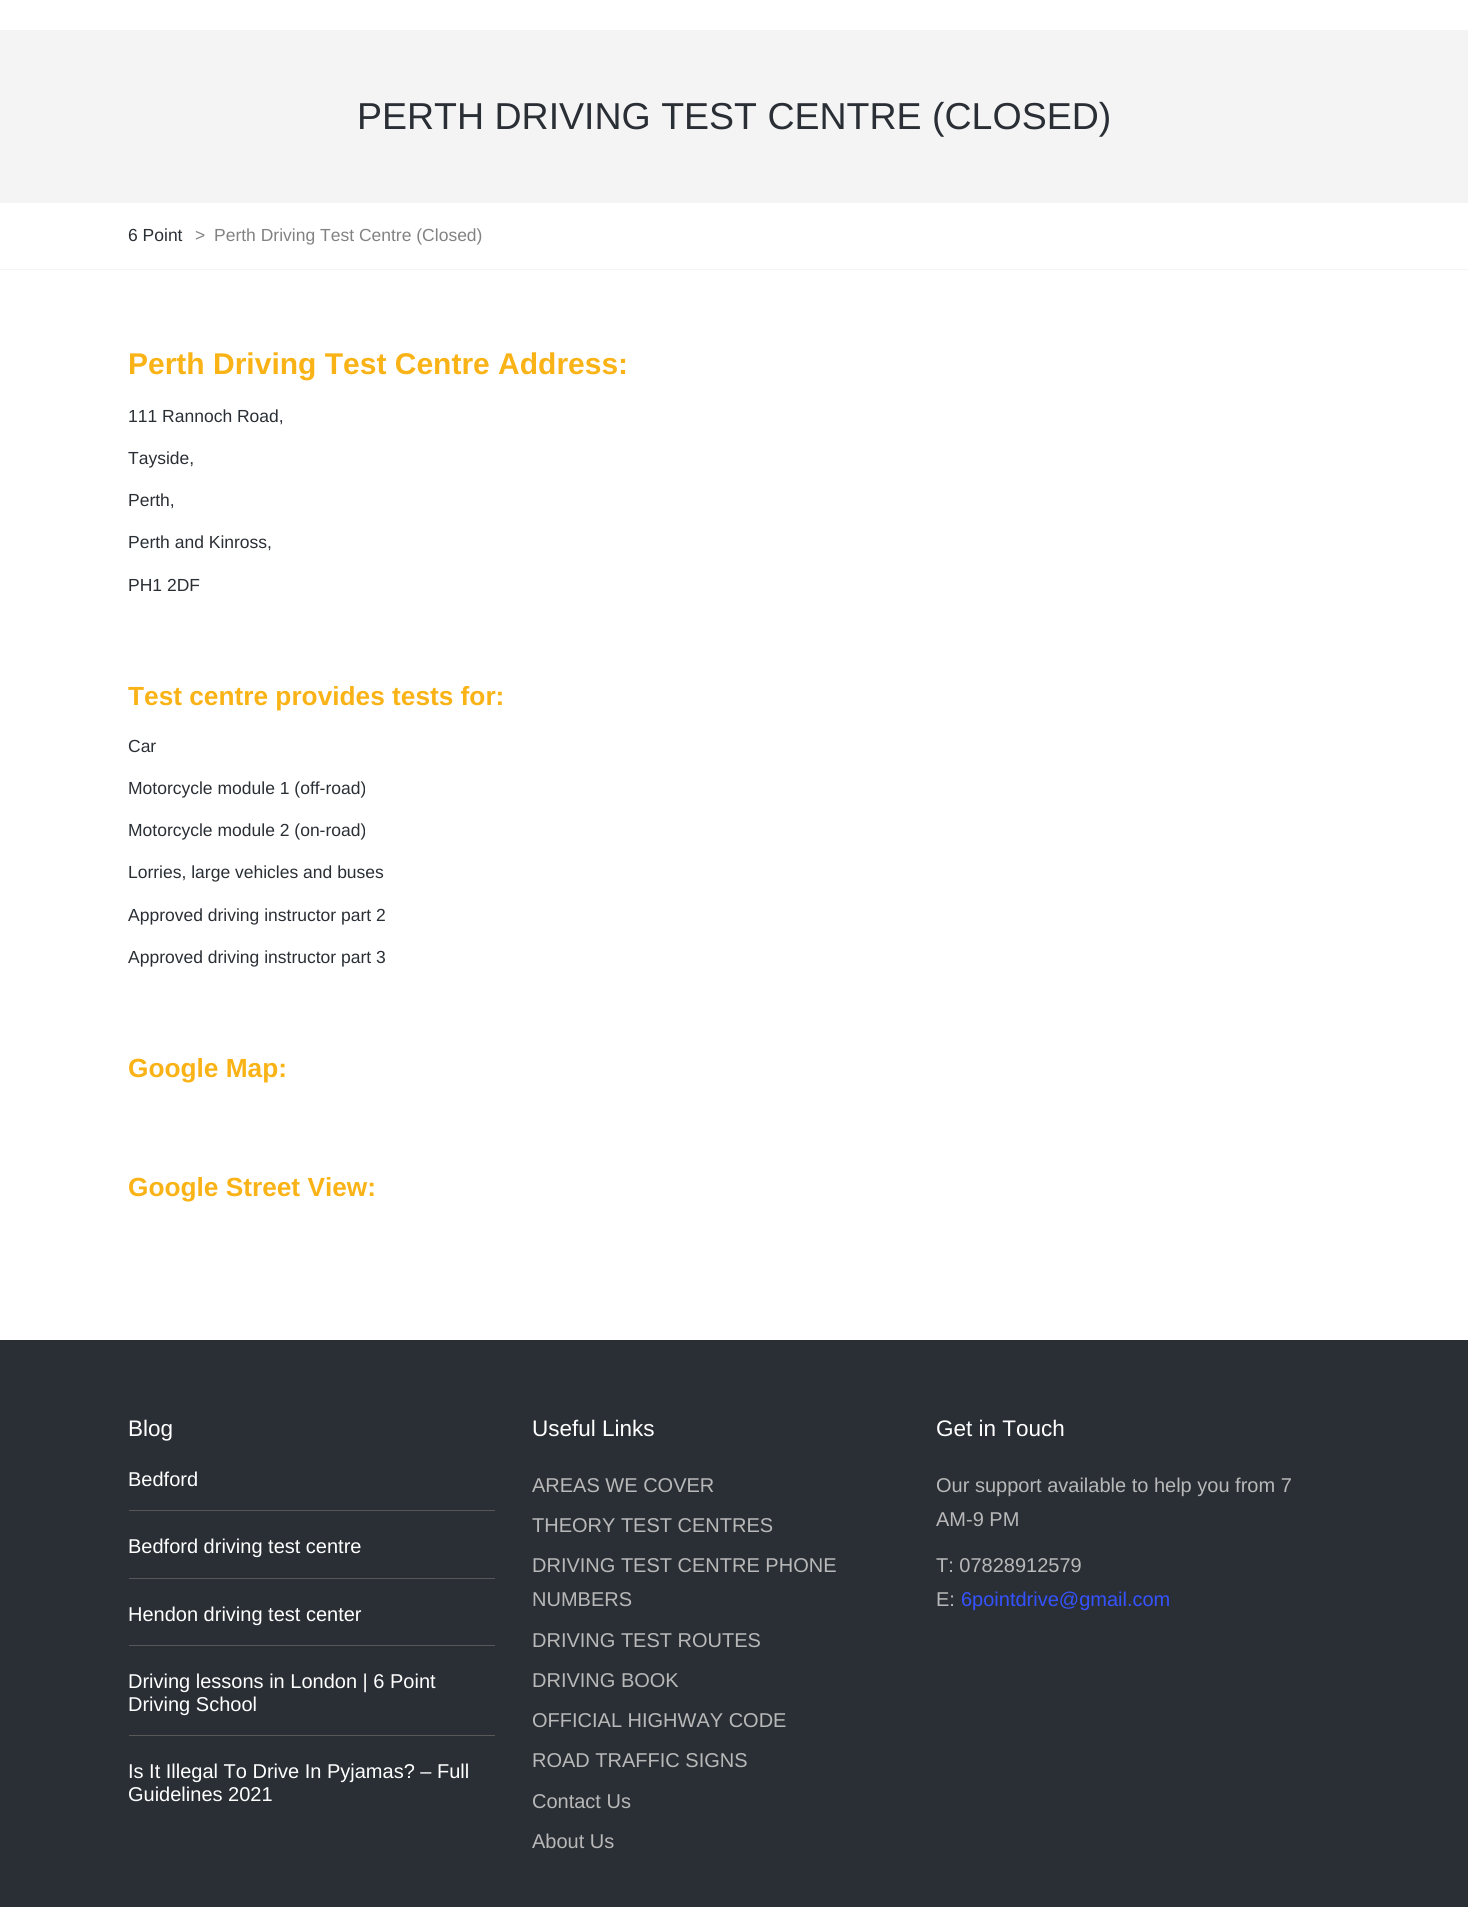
#include <cairo.h>
#include <math.h>
#include <stddef.h>

typedef struct { const char *family; double size; int italic, bold; unsigned color; } style_t;
static cairo_t *ctx;

static void ink(unsigned color) {
    cairo_set_source_rgb(ctx, (color >> 16) / 255.0, (color >> 8 & 255) / 255.0, (color & 255) / 255.0);
}

static void write(double x, double y, const char *s, const style_t *st) {
    cairo_select_font_face(ctx, st->family, st->italic ? CAIRO_FONT_SLANT_ITALIC : CAIRO_FONT_SLANT_NORMAL,
        st->bold ? CAIRO_FONT_WEIGHT_BOLD : CAIRO_FONT_WEIGHT_NORMAL);
    cairo_set_font_size(ctx, st->size);
    ink(st->color);
    cairo_move_to(ctx, x, y);
    cairo_show_text(ctx, s);
}

static void block(double x, double y, double w, double h, unsigned color) {
    ink(color);
    cairo_rectangle(ctx, x, y, w, h);
    cairo_fill(ctx);
}

static const style_t s1 = {"Liberation Sans", 37.5, 0, 0, 0x2a2f35};
static const style_t s2 = {"Liberation Sans", 17.5, 0, 0, 0x2a2f35};
static const style_t s3 = {"Liberation Sans", 17.5, 0, 0, 0x828282};
static const style_t s4 = {"Liberation Sans", 30, 0, 1, 0xfab316};
static const style_t s5 = {"Liberation Sans", 26.25, 0, 1, 0xfab316};
static const style_t s6 = {"Liberation Sans", 22.5, 0, 0, 0xffffff};
static const style_t s7 = {"Liberation Sans", 20, 0, 0, 0xffffff};
static const style_t s8 = {"Liberation Sans", 20, 0, 0, 0xb8b8b8};
static const style_t s9 = {"Liberation Sans", 20, 0, 0, 0x3452ff};

int main(void) {
    cairo_surface_t *surface = cairo_image_surface_create(CAIRO_FORMAT_RGB24, 1468, 1907);
    ctx = cairo_create(surface);
    cairo_font_options_t *options = cairo_font_options_create();
    cairo_font_options_set_hint_metrics(options, CAIRO_HINT_METRICS_OFF);
    cairo_font_options_set_hint_style(options, CAIRO_HINT_STYLE_NONE);
    cairo_set_font_options(ctx, options);
    cairo_set_miter_limit(ctx, 4);
    ink(0xffffff);
    cairo_paint(ctx);
    block(0, 30, 1468, 173, 0xf4f4f4);
    write(357, 129, "PERTH DRIVING TEST CENTRE (CLOSED)", &s1);
    block(0, 269, 1468, 1, 0xf5f5f5);
    write(128, 241, "6 Point", &s2);
    write(195, 241, ">", &s3);
    write(214, 241, "Perth Driving Test Centre (Closed)", &s3);
    write(128, 374, "Perth Driving Test Centre Address:", &s4);
    write(128, 422, "111 Rannoch Road,", &s2);
    write(128, 464, "Tayside,", &s2);
    write(128, 506, "Perth,", &s2);
    write(128, 548, "Perth and Kinross,", &s2);
    write(128, 591, "PH1 2DF", &s2);
    write(128, 705, "Test centre provides tests for:", &s5);
    write(128, 752, "Car", &s2);
    write(128, 794, "Motorcycle module 1 (off-road)", &s2);
    write(128, 836, "Motorcycle module 2 (on-road)", &s2);
    write(128, 878, "Lorries, large vehicles and buses", &s2);
    write(128, 921, "Approved driving instructor part 2", &s2);
    write(128, 963, "Approved driving instructor part 3", &s2);
    write(128, 1077, "Google Map:", &s5);
    write(128, 1196, "Google Street View:", &s5);
    block(0, 1340, 1468, 567, 0x2a2f35);
    write(128, 1436, "Blog", &s6);
    block(129, 1510, 366, 1, 0x585858);
    write(128, 1486, "Bedford", &s7);
    block(129, 1578, 366, 1, 0x585858);
    write(128, 1553, "Bedford driving test centre", &s7);
    block(129, 1645, 366, 1, 0x585858);
    write(128, 1621, "Hendon driving test center", &s7);
    block(129, 1735, 366, 1, 0x585858);
    write(128, 1688, "Driving lessons in London | 6 Point", &s7);
    write(128, 1711, "Driving School", &s7);
    write(128, 1778, "Is It Illegal To Drive In Pyjamas? – Full", &s7);
    write(128, 1801, "Guidelines 2021", &s7);
    write(532, 1436, "Useful Links", &s6);
    write(532, 1492, "AREAS WE COVER", &s8);
    write(532, 1532, "THEORY TEST CENTRES", &s8);
    write(532, 1572, "DRIVING TEST CENTRE PHONE", &s8);
    write(532, 1606, "NUMBERS", &s8);
    write(532, 1647, "DRIVING TEST ROUTES", &s8);
    write(532, 1687, "DRIVING BOOK", &s8);
    write(532, 1727, "OFFICIAL HIGHWAY CODE", &s8);
    write(532, 1767, "ROAD TRAFFIC SIGNS", &s8);
    write(532, 1808, "Contact Us", &s8);
    write(532, 1848, "About Us", &s8);
    write(936, 1436, "Get in Touch", &s6);
    write(936, 1492, "Our support available to help you from 7", &s8);
    write(936, 1526, "AM-9 PM", &s8);
    write(936, 1572, "T: 07828912579", &s8);
    write(936, 1606, "E:", &s8);
    write(961, 1606, "6pointdrive@gmail.com", &s9);
    cairo_surface_write_to_png(surface, "screenshot.png");
    cairo_font_options_destroy(options);
    cairo_destroy(ctx);
    cairo_surface_destroy(surface);
    return 0;
}
